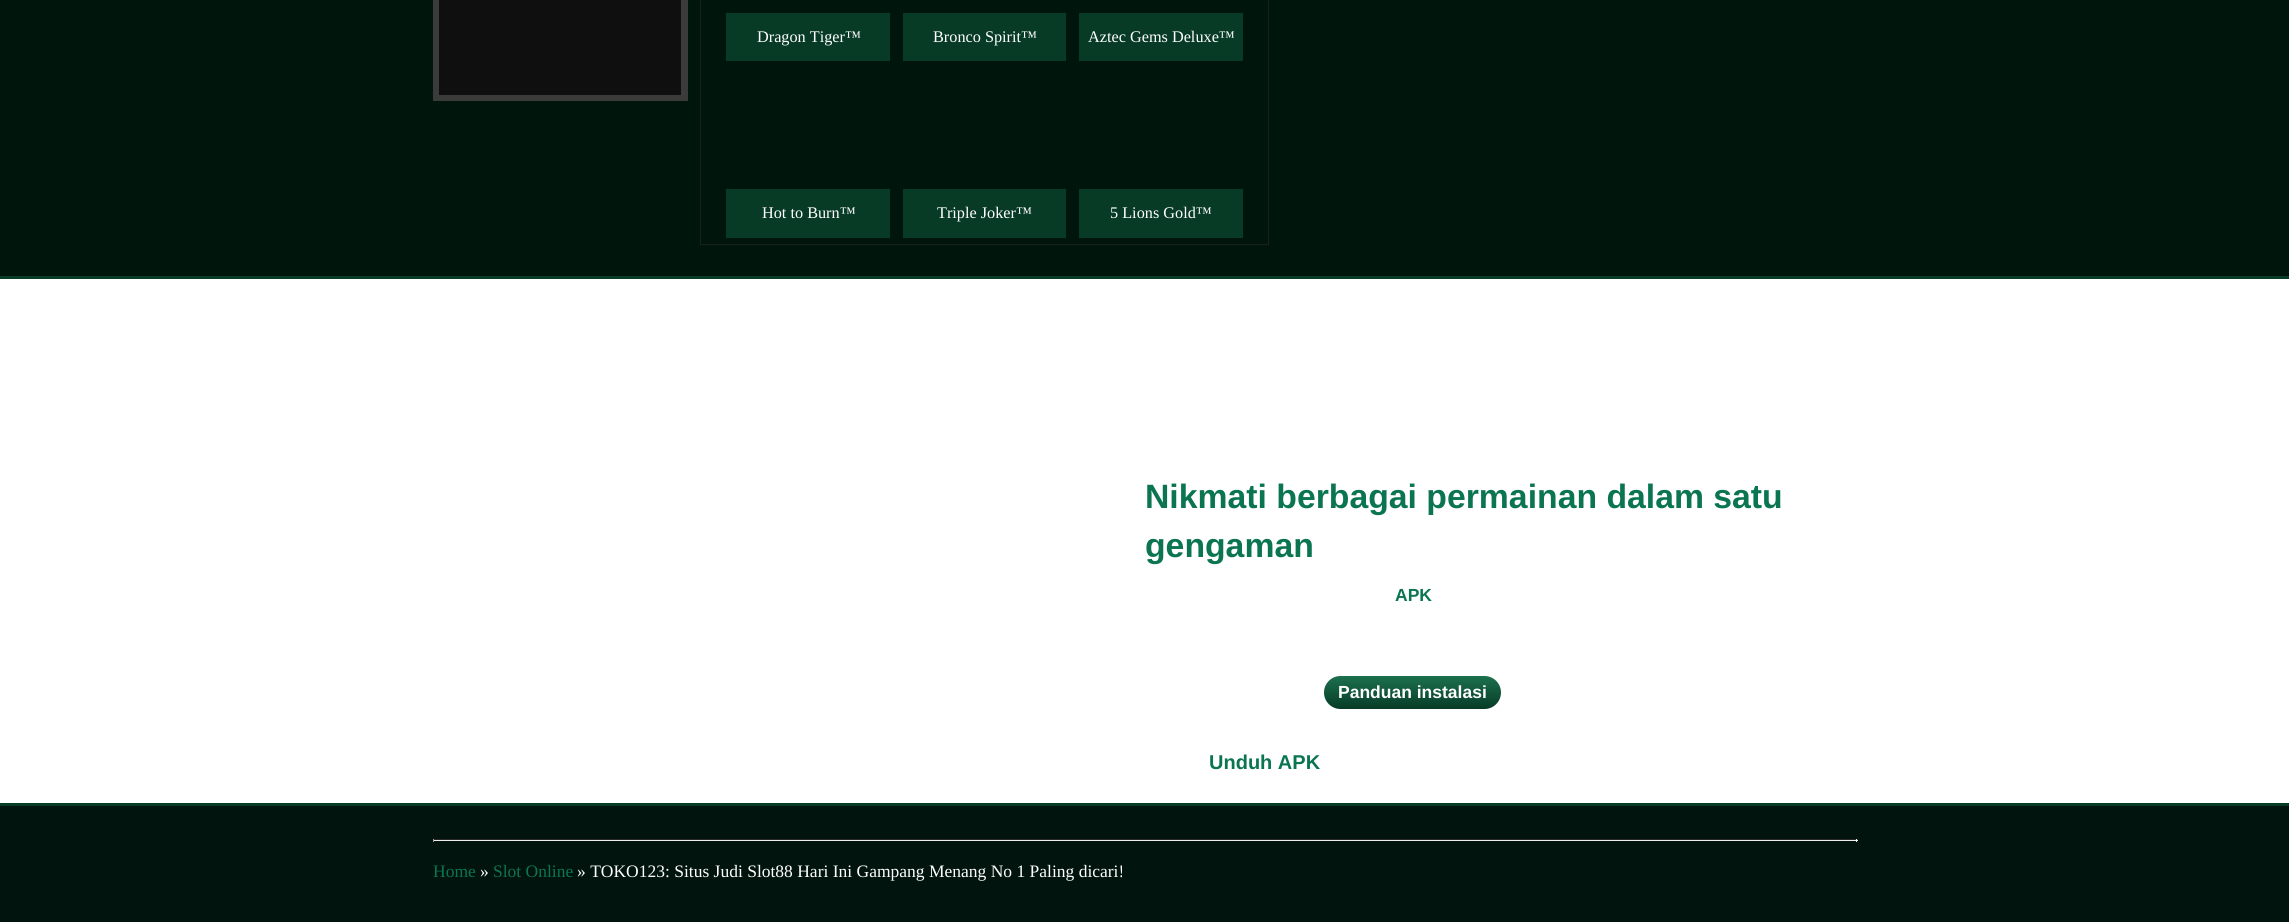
#include <cairo.h>
#include <math.h>
#include <stddef.h>

typedef struct { const char *family; double size; int italic, bold; unsigned color; } style_t;
static cairo_t *ctx;

static void ink(unsigned color) {
    cairo_set_source_rgb(ctx, (color >> 16) / 255.0, (color >> 8 & 255) / 255.0, (color & 255) / 255.0);
}

static void write(double x, double y, const char *s, const style_t *st) {
    cairo_select_font_face(ctx, st->family, st->italic ? CAIRO_FONT_SLANT_ITALIC : CAIRO_FONT_SLANT_NORMAL,
        st->bold ? CAIRO_FONT_WEIGHT_BOLD : CAIRO_FONT_WEIGHT_NORMAL);
    cairo_set_font_size(ctx, st->size);
    ink(st->color);
    cairo_move_to(ctx, x, y);
    cairo_show_text(ctx, s);
}

static void block(double x, double y, double w, double h, unsigned color) {
    ink(color);
    cairo_rectangle(ctx, x, y, w, h);
    cairo_fill(ctx);
}

static void round_path(double x, double y, double w, double h, double r) {
    cairo_new_sub_path(ctx);
    cairo_arc(ctx, x + w - r, y + h - r, r, 0, M_PI / 2);
    cairo_arc(ctx, x + r, y + h - r, r, M_PI / 2, M_PI);
    cairo_arc(ctx, x + r, y + r, r, M_PI, 1.5 * M_PI);
    cairo_arc(ctx, x + w - r, y + r, r, 1.5 * M_PI, 2 * M_PI);
    cairo_close_path(ctx);
}

static const style_t s1 = {"Liberation Serif", 16.25, 0, 0, 0xffffff};
static const style_t s2 = {"Liberation Sans", 33.75, 0, 1, 0x0b7552};
static const style_t s3 = {"Liberation Sans", 17.5, 0, 1, 0x0b7552};
static const style_t s4 = {"Liberation Sans", 17.5, 0, 1, 0xffffff};
static const style_t s5 = {"Liberation Sans", 20, 0, 1, 0x0b7552};
static const style_t s6 = {"Liberation Serif", 17.5, 0, 0, 0x0b7552};
static const style_t s7 = {"Liberation Serif", 17.5, 0, 0, 0xffffff};

int main(void) {
    cairo_surface_t *surface = cairo_image_surface_create(CAIRO_FORMAT_RGB24, 2289, 922);
    ctx = cairo_create(surface);
    cairo_font_options_t *options = cairo_font_options_create();
    cairo_font_options_set_hint_metrics(options, CAIRO_HINT_METRICS_OFF);
    cairo_font_options_set_hint_style(options, CAIRO_HINT_STYLE_NONE);
    cairo_set_font_options(ctx, options);
    cairo_set_miter_limit(ctx, 4);
    cairo_pattern_t *gradient;
    ink(0xffffff);
    cairo_paint(ctx);
    block(0, 0, 2289, 276, 0x00160d);
    block(0, 276, 2289, 3, 0x073b26);
    block(433, 0, 255, 101, 0x3b3b3b);
    block(439, 0, 242, 95, 0x0f0f0f);
    cairo_rectangle(ctx, 700.5, -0.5, 568, 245);
    ink(0x1f1e1e);
    cairo_set_line_width(ctx, 1);
    cairo_stroke(ctx);
    block(726, 13, 164, 48, 0x073b26);
    write(757, 42, "Dragon Tiger™", &s1);
    block(903, 13, 163, 48, 0x073b26);
    write(933, 42, "Bronco Spirit™", &s1);
    block(1079, 13, 164, 48, 0x073b26);
    write(1088, 42, "Aztec Gems Deluxe™", &s1);
    block(726, 189, 164, 49, 0x073b26);
    write(762, 218, "Hot to Burn™", &s1);
    block(903, 189, 163, 49, 0x073b26);
    write(937, 218, "Triple Joker™", &s1);
    block(1079, 189, 164, 49, 0x073b26);
    write(1110, 218, "5 Lions Gold™", &s1);
    write(1145, 508, "Nikmati berbagai permainan dalam satu", &s2);
    write(1145, 557, "gengaman", &s2);
    write(1395, 601, "APK", &s3);
    gradient = cairo_pattern_create_linear(1413, 676, 1413, 709);
    cairo_pattern_add_color_stop_rgba(gradient, 0, 0.11, 0.443, 0.306, 1);
    cairo_pattern_add_color_stop_rgba(gradient, 1, 0.027, 0.231, 0.149, 1);
    cairo_set_source(ctx, gradient);
    cairo_pattern_destroy(gradient);
    round_path(1324, 676, 177, 33, 16.5);
    cairo_fill(ctx);
    write(1338, 698, "Panduan instalasi", &s4);
    write(1209, 769, "Unduh APK", &s5);
    block(0, 806, 2289, 116, 0x01140d);
    block(0, 803, 2289, 3, 0x073b26);
    block(433, 839, 1425, 1, 0x292729);
    block(1856, 839, 1, 3, 0xeeeeee);
    block(433, 840, 1425, 1, 0xeeeeee);
    block(433, 839, 1, 3, 0x9f9f9f);
    write(433, 877, "Home", &s6);
    write(480, 877, "»", &s7);
    write(493, 877, "Slot Online", &s6);
    write(577, 877, "» TOKO123: Situs Judi Slot88 Hari Ini Gampang Menang No 1 Paling dicari!", &s7);
    cairo_surface_write_to_png(surface, "screenshot.png");
    cairo_font_options_destroy(options);
    cairo_destroy(ctx);
    cairo_surface_destroy(surface);
    return 0;
}
